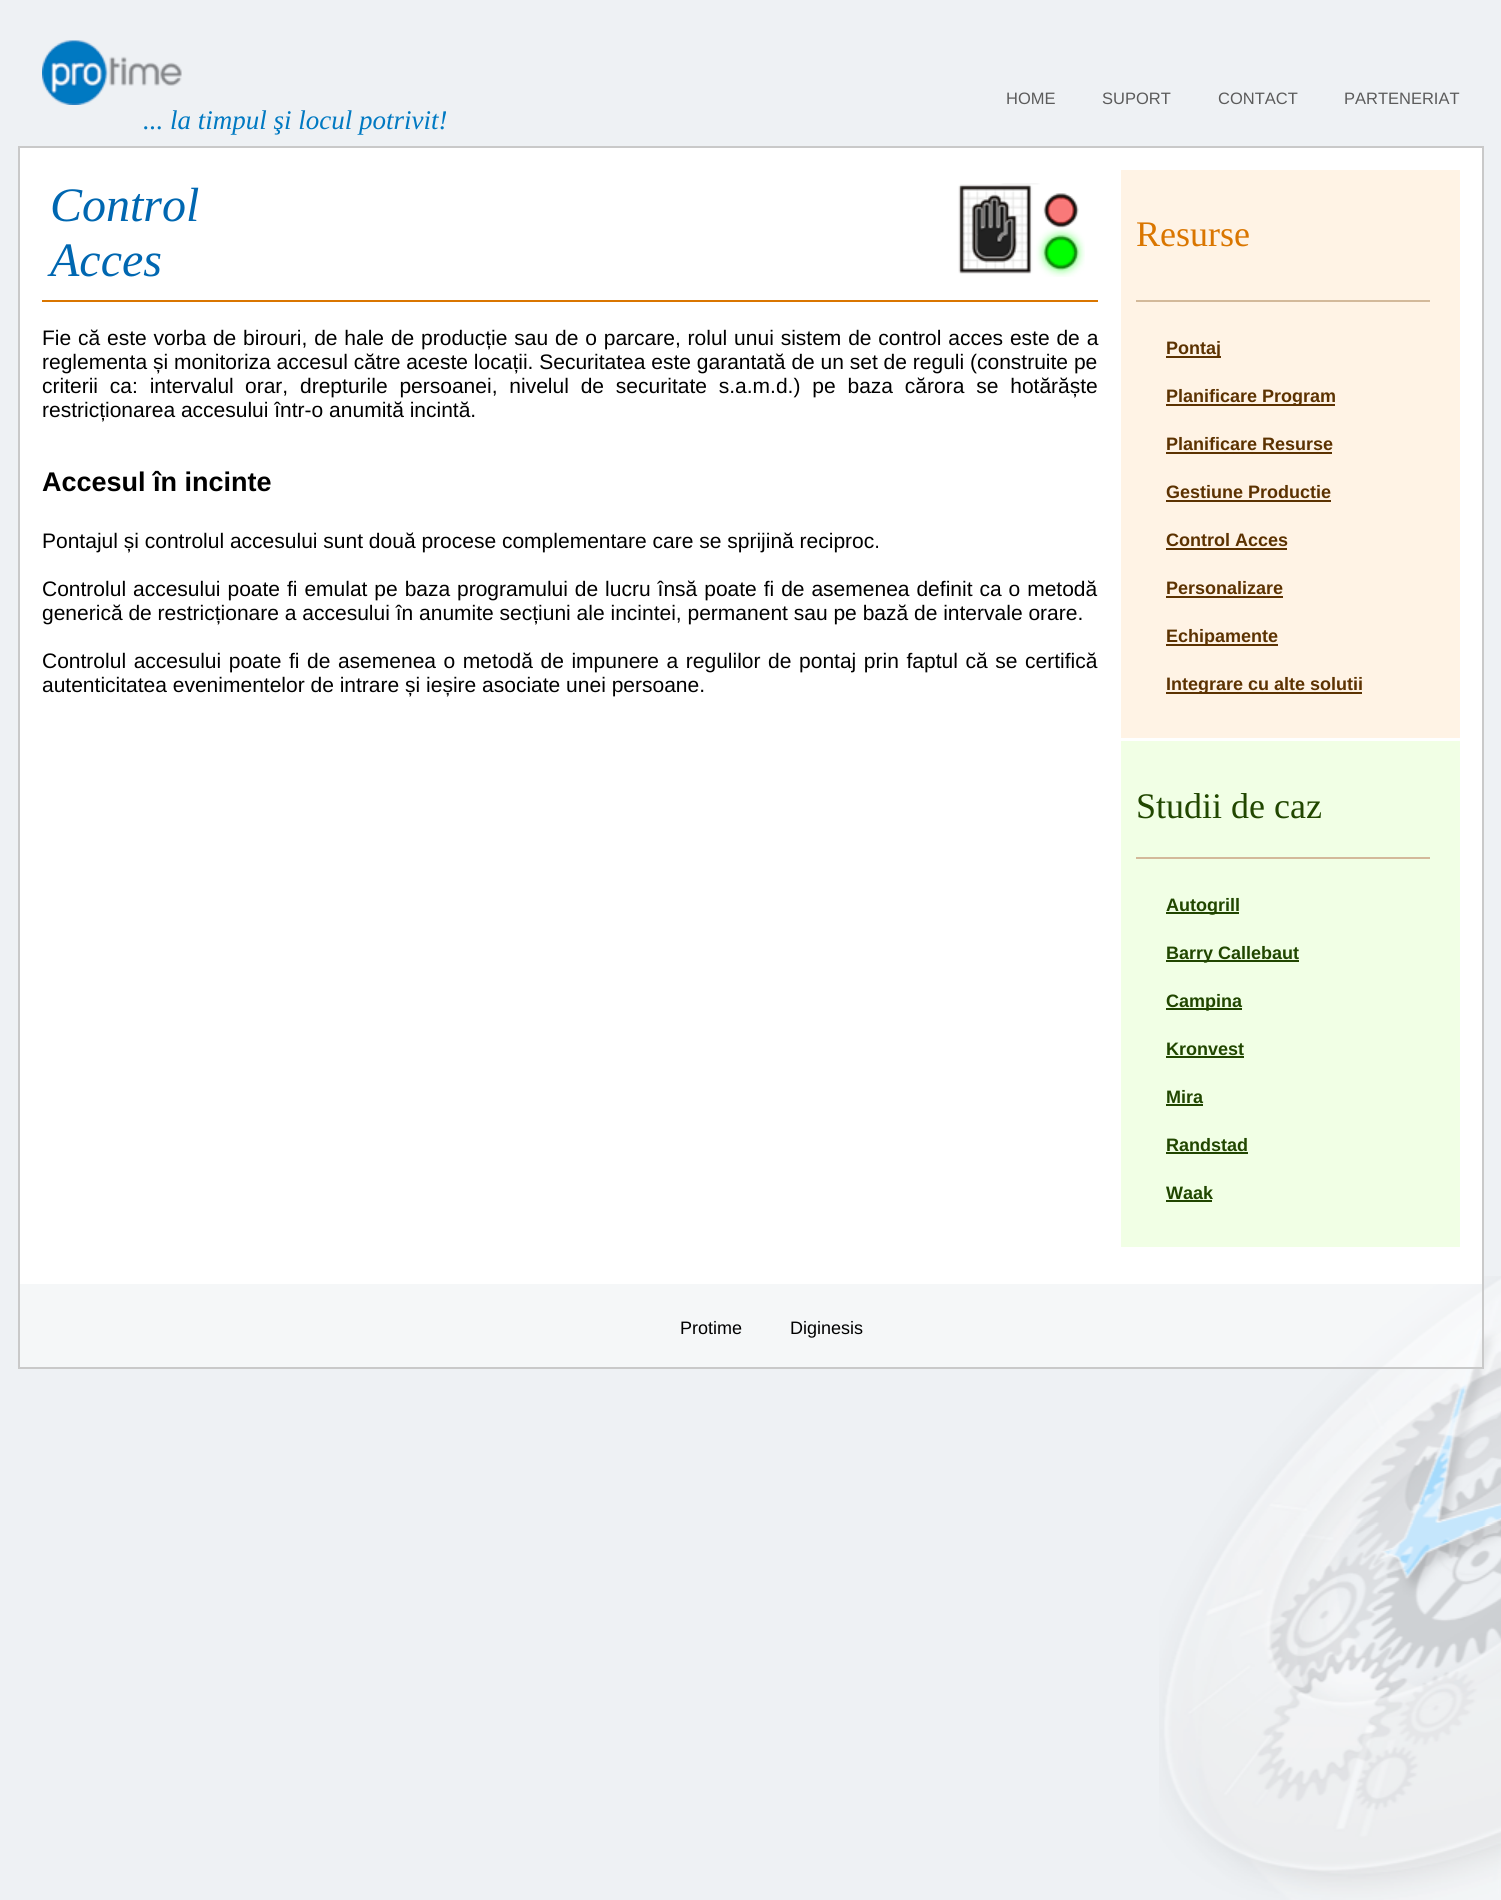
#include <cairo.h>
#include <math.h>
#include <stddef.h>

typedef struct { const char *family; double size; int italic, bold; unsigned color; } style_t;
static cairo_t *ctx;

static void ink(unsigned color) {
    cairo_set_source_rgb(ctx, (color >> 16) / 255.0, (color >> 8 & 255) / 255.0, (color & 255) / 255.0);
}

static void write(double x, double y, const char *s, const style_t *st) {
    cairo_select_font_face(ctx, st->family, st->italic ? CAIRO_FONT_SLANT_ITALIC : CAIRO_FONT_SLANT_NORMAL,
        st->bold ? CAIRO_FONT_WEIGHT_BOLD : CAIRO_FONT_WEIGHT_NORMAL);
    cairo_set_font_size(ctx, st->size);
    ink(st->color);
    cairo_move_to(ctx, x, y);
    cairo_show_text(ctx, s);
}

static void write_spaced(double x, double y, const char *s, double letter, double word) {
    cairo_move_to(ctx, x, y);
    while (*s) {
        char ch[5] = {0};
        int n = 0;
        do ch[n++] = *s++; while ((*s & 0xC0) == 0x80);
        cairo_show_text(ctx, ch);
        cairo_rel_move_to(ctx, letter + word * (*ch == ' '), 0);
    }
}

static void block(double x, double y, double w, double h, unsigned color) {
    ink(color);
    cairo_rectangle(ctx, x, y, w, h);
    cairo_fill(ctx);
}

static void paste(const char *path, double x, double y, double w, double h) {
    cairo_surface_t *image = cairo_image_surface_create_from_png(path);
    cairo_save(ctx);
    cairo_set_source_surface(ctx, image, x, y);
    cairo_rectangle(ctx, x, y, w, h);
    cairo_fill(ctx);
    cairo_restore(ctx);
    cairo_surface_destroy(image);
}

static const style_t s1 = {"Liberation Sans", 16.5, 0, 0, 0x5b5b5b};
static const style_t s2 = {"Liberation Serif", 27, 1, 0, 0x0079c2};
static const style_t s3 = {"Liberation Serif", 48, 1, 0, 0x0067b1};
static const style_t s4 = {"Liberation Sans", 21, 0, 0, 0x000000};
static const style_t s5 = {"Liberation Sans", 27, 0, 1, 0x000000};
static const style_t s6 = {"Liberation Serif", 36, 0, 0, 0xda7600};
static const style_t s7 = {"Liberation Sans", 18, 0, 1, 0x5c3201};
static const style_t s8 = {"Liberation Serif", 36, 0, 0, 0x214700};
static const style_t s9 = {"Liberation Sans", 18, 0, 1, 0x214700};
static const style_t s10 = {"Liberation Sans", 18, 0, 0, 0x000000};

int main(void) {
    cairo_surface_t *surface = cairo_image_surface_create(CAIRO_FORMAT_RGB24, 1501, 1900);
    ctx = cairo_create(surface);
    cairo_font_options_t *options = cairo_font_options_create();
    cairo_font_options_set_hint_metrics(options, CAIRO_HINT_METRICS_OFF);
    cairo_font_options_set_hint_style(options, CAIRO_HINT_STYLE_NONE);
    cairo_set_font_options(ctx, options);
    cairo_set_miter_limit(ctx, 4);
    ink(0xeef1f4);
    cairo_paint(ctx);
    paste("pic1.png", 1159, 1276, 342, 624);
    write(1006, 104, "HOME", &s1);
    write(1102, 104, "SUPORT", &s1);
    write(1218, 104, "CONTACT", &s1);
    write(1344, 104, "PARTENERIAT", &s1);
    paste("pic2.png", 42, 40, 140, 65);
    write(143, 129, "... la timpul şi locul potrivit!", &s2);
    block(20, 148, 1462, 1136, 0xffffff);
    block(18, 146, 1466, 2, 0xc9c9c9);
    block(1482, 146, 2, 1222, 0xc9c9c9);
    block(18, 146, 2, 1138, 0xc9c9c9);
    block(42, 300, 1056, 2, 0xda7600);
    write(50, 221, "Control", &s3);
    write(50, 276, "Acces", &s3);
    paste("pic3.png", 958, 183, 127, 94);
    cairo_select_font_face(ctx, "Liberation Sans", CAIRO_FONT_SLANT_NORMAL, CAIRO_FONT_WEIGHT_NORMAL);
    cairo_set_font_size(ctx, 21);
    ink(0x000000);
    write_spaced(42, 345, "Fie că este vorba de birouri, de hale de producție sau de o parcare, rolul unui sistem de control acces este de a", 0, 1);
    write(42, 369, "reglementa și monitoriza accesul către aceste locații. Securitatea este garantată de un set de reguli (construite pe", &s4);
    write_spaced(42, 393, "criterii ca: intervalul", 0, 6);
    write_spaced(245, 393, "orar, drepturile persoanei, nivelul de securitate s.a.m.d.) pe baza cărora se hotărăște", 0, 6);
    write(42, 417, "restricționarea accesului într-o anumită incintă.", &s4);
    write(42, 491, "Accesul în incinte", &s5);
    write(42, 548, "Pontajul și controlul accesului sunt două procese complementare care se sprijină reciproc.", &s4);
    write_spaced(42, 596, "Controlul accesului poate fi emulat pe baza", 0, 1.1);
    write_spaced(457, 596, "programului de lucru însă poate fi de asemenea definit ca o metodă", 0, 1.1);
    write(42, 620, "generică de restricționare a accesului în anumite secțiuni ale incintei, permanent sau pe bază de intervale orare.", &s4);
    write_spaced(42, 668, "Controlul accesului poate fi de asemenea o metodă de impunere a regulilor de pontaj prin faptul că se certifică", 0, 1.75);
    write(42, 692, "autenticitatea evenimentelor de intrare și ieșire asociate unei persoane.", &s4);
    block(1121, 170, 339, 568, 0xfff3e5);
    block(1136, 300, 294, 2, 0xd3b99a);
    write(1136, 246, "Resurse", &s6);
    block(1166, 356, 55, 2, 0x5c3201);
    write(1166, 354, "Pontaj", &s7);
    block(1166, 404, 169, 2, 0x5c3201);
    write(1166, 402, "Planificare Program", &s7);
    write(1166, 450, "Planificare Resurse", &s7);
    block(1166, 452, 166, 2, 0x5c3201);
    write(1166, 498, "Gestiune Productie", &s7);
    block(1166, 500, 165, 2, 0x5c3201);
    write(1166, 546, "Control Acces", &s7);
    block(1166, 548, 121, 2, 0x5c3201);
    write(1166, 594, "Personalizare", &s7);
    block(1166, 596, 117, 2, 0x5c3201);
    block(1166, 644, 112, 2, 0x5c3201);
    write(1166, 642, "Echipamente", &s7);
    block(1166, 692, 196, 2, 0x5c3201);
    write(1166, 690, "Integrare cu alte solutii", &s7);
    block(1121, 741, 339, 506, 0xf1ffe5);
    block(1136, 857, 294, 2, 0xd3b99a);
    write(1136, 818, "Studii de caz", &s8);
    block(1166, 912, 73, 2, 0x214600);
    write(1166, 911, "Autogrill", &s9);
    block(1166, 960, 133, 2, 0x214600);
    write(1166, 959, "Barry Callebaut", &s9);
    block(1166, 1008, 76, 2, 0x214600);
    write(1166, 1007, "Campina", &s9);
    write(1166, 1055, "Kronvest", &s9);
    block(1166, 1056, 78, 2, 0x214600);
    write(1166, 1103, "Mira", &s9);
    block(1166, 1104, 37, 2, 0x214600);
    write(1166, 1151, "Randstad", &s9);
    block(1166, 1152, 82, 2, 0x214600);
    write(1166, 1199, "Waak", &s9);
    block(1166, 1200, 46, 2, 0x214600);
    block(18, 1367, 1466, 2, 0xc9c9c9);
    block(18, 1284, 2, 84, 0xc9c9c9);
    cairo_set_source_rgba(ctx, 1, 1, 1, 0.4);
    cairo_rectangle(ctx, 20, 1284, 1462, 83);
    cairo_fill(ctx);
    write(680, 1334, "Protime", &s10);
    write(790, 1334, "Diginesis", &s10);
    cairo_surface_write_to_png(surface, "screenshot.png");
    cairo_font_options_destroy(options);
    cairo_destroy(ctx);
    cairo_surface_destroy(surface);
    return 0;
}
